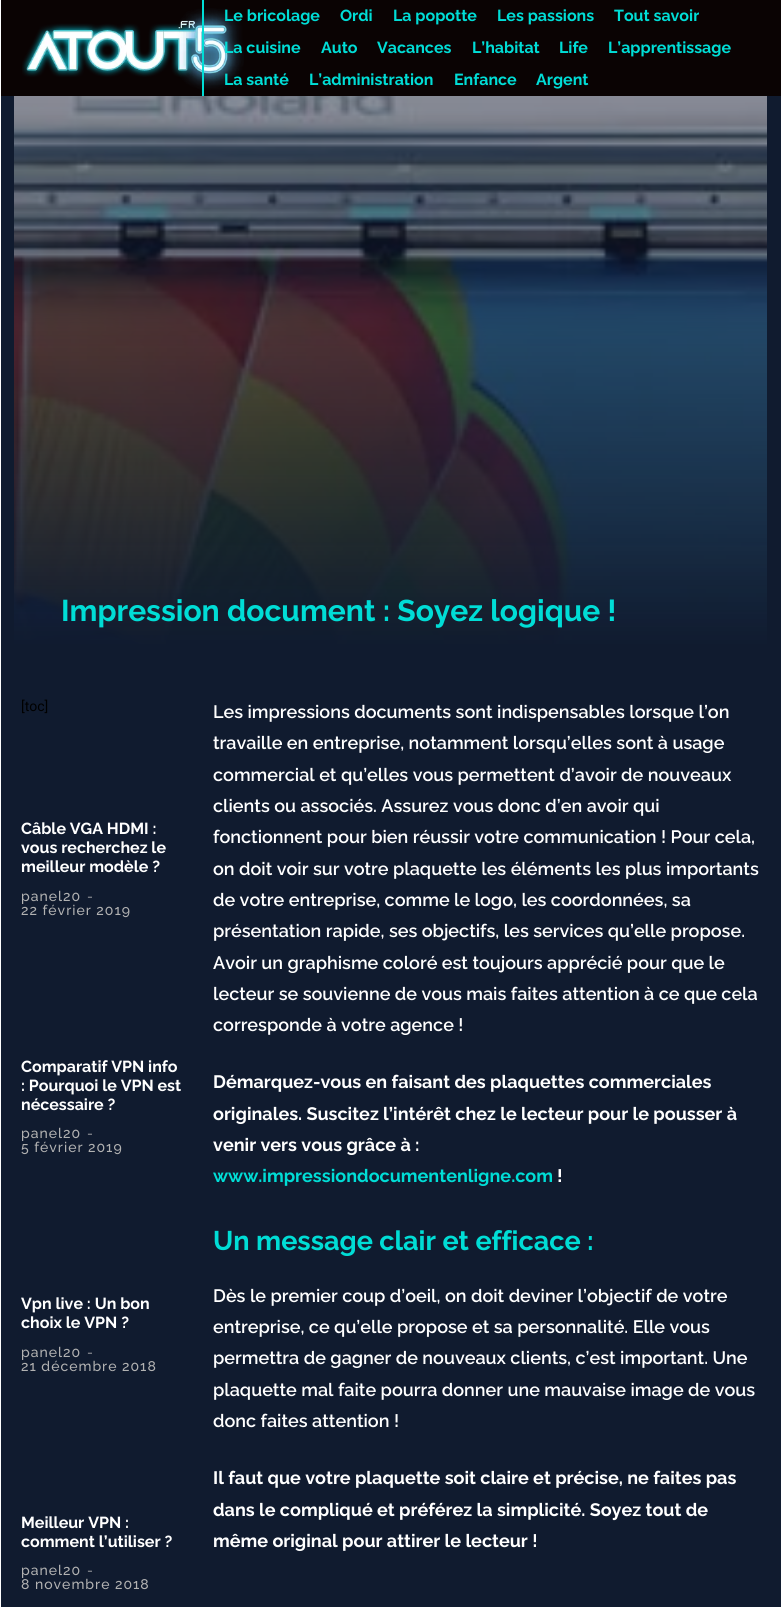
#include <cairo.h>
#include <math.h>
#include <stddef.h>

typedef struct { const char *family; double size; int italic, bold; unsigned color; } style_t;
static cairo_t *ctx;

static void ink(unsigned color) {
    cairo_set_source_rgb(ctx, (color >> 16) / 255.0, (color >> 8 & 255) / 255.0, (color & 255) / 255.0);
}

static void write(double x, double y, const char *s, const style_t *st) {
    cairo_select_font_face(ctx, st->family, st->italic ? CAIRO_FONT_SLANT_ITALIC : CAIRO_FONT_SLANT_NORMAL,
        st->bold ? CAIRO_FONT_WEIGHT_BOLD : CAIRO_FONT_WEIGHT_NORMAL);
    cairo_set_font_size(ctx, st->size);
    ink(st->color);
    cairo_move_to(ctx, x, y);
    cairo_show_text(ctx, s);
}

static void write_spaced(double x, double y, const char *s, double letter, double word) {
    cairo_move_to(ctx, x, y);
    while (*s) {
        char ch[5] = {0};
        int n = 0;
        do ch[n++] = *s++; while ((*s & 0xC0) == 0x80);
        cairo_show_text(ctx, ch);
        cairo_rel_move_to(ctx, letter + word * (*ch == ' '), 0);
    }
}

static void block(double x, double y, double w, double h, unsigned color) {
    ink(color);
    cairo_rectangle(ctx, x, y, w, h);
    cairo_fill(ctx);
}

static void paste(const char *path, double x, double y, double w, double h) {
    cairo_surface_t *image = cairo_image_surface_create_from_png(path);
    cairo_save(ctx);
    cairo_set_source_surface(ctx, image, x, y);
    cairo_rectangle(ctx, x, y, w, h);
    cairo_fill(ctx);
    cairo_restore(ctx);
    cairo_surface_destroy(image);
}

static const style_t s1 = {"Raleway", 16, 0, 1, 0x00ddd6};
static const style_t s2 = {"Raleway", 30, 0, 1, 0x00ddd6};
static const style_t s3 = {"Roboto", 14, 0, 0, 0x000000};
static const style_t s4 = {"Raleway", 16, 0, 1, 0xffffff};
static const style_t s5 = {"Raleway SemiBold", 18, 0, 0, 0xffffff};
static const style_t s6 = {"Raleway", 18, 0, 1, 0xffffff};
static const style_t s7 = {"Raleway", 18, 0, 1, 0x00ddd6};
static const style_t s8 = {"Raleway", 27, 0, 1, 0x00ddd6};

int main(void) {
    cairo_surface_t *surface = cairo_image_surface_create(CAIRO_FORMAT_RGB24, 781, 1607);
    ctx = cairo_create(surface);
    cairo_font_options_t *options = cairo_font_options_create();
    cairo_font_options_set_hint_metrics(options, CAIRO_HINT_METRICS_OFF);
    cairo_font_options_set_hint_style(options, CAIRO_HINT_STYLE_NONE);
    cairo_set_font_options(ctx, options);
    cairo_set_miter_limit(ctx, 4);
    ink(0xffffff);
    cairo_paint(ctx);
    block(1, 0, 780, 96, 0x0a0303);
    paste("pic1.png", 22, 8, 222, 82);
    block(202, 0, 2, 96, 0x00ddd6);
    write(224, 21, "Le bricolage", &s1);
    write(340, 21, "Ordi", &s1);
    write(393, 21, "La popotte", &s1);
    write(497, 21, "Les passions", &s1);
    write(614, 21, "Tout savoir", &s1);
    write(224, 53, "La cuisine", &s1);
    write(321, 53, "Auto", &s1);
    write(377, 53, "Vacances", &s1);
    write(472, 53, "L’habitat", &s1);
    write(559, 53, "Life", &s1);
    write(608, 53, "L’apprentissage", &s1);
    write(224, 85, "La santé", &s1);
    write(309, 85, "L’administration", &s1);
    write(454, 85, "Enfance", &s1);
    write(536, 85, "Argent", &s1);
    block(1, 96, 780, 1511, 0x101b2f);
    paste("pic2.png", 14, 96, 753, 550);
    write(61, 621, "Impression document : Soyez logique !", &s2);
    write(21, 711, "[toc]", &s3);
    write(21, 834, "Câble VGA HDMI :", &s4);
    write(21, 853, "vous recherchez le", &s4);
    write(21, 872, "meilleur modèle ?", &s4);
    cairo_select_font_face(ctx, "Raleway Medium", CAIRO_FONT_SLANT_NORMAL, CAIRO_FONT_WEIGHT_NORMAL);
    cairo_set_font_size(ctx, 14);
    ink(0xb2b2b2);
    write_spaced(21, 901, "panel20", 1, 0);
    cairo_select_font_face(ctx, "Raleway", CAIRO_FONT_SLANT_NORMAL, CAIRO_FONT_WEIGHT_NORMAL);
    write_spaced(87, 901, "-", 1, 0);
    cairo_select_font_face(ctx, "Raleway Medium", CAIRO_FONT_SLANT_NORMAL, CAIRO_FONT_WEIGHT_NORMAL);
    write_spaced(21, 915, "22 février 2019", 1, 0);
    write(21, 1072, "Comparatif VPN info", &s4);
    write(21, 1091, ": Pourquoi le VPN est", &s4);
    write(21, 1110, "nécessaire ?", &s4);
    cairo_select_font_face(ctx, "Raleway Medium", CAIRO_FONT_SLANT_NORMAL, CAIRO_FONT_WEIGHT_NORMAL);
    cairo_set_font_size(ctx, 14);
    ink(0xb2b2b2);
    write_spaced(21, 1138, "panel20", 1, 0);
    cairo_select_font_face(ctx, "Raleway", CAIRO_FONT_SLANT_NORMAL, CAIRO_FONT_WEIGHT_NORMAL);
    write_spaced(87, 1138, "-", 1, 0);
    cairo_select_font_face(ctx, "Raleway Medium", CAIRO_FONT_SLANT_NORMAL, CAIRO_FONT_WEIGHT_NORMAL);
    write_spaced(21, 1152, "5 février 2019", 1, 0);
    write(21, 1309, "Vpn live : Un bon", &s4);
    write(21, 1328, "choix le VPN ?", &s4);
    cairo_select_font_face(ctx, "Raleway Medium", CAIRO_FONT_SLANT_NORMAL, CAIRO_FONT_WEIGHT_NORMAL);
    cairo_set_font_size(ctx, 14);
    ink(0xb2b2b2);
    write_spaced(21, 1357, "panel20", 1, 0);
    cairo_select_font_face(ctx, "Raleway", CAIRO_FONT_SLANT_NORMAL, CAIRO_FONT_WEIGHT_NORMAL);
    write_spaced(87, 1357, "-", 1, 0);
    cairo_select_font_face(ctx, "Raleway Medium", CAIRO_FONT_SLANT_NORMAL, CAIRO_FONT_WEIGHT_NORMAL);
    write_spaced(21, 1371, "21 décembre 2018", 1, 0);
    write(21, 1528, "Meilleur VPN :", &s4);
    write(21, 1547, "comment l’utiliser ?", &s4);
    cairo_select_font_face(ctx, "Raleway Medium", CAIRO_FONT_SLANT_NORMAL, CAIRO_FONT_WEIGHT_NORMAL);
    cairo_set_font_size(ctx, 14);
    ink(0xb2b2b2);
    write_spaced(21, 1575, "panel20", 1, 0);
    cairo_select_font_face(ctx, "Raleway", CAIRO_FONT_SLANT_NORMAL, CAIRO_FONT_WEIGHT_NORMAL);
    write_spaced(87, 1575, "-", 1, 0);
    cairo_select_font_face(ctx, "Raleway Medium", CAIRO_FONT_SLANT_NORMAL, CAIRO_FONT_WEIGHT_NORMAL);
    write_spaced(21, 1589, "8 novembre 2018", 1, 0);
    write(213, 718, "Les impressions documents sont indispensables lorsque l’on", &s5);
    write(213, 749, "travaille en entreprise, notamment lorsqu’elles sont à usage", &s5);
    write(213, 781, "commercial et qu’elles vous permettent d’avoir de nouveaux", &s5);
    write(213, 812, "clients ou associés. Assurez vous donc d’en avoir qui", &s5);
    write(213, 843, "fonctionnent pour bien réussir votre communication ! Pour cela,", &s5);
    write(213, 875, "on doit voir sur votre plaquette les éléments les plus importants", &s5);
    write(213, 906, "de votre entreprise, comme le logo, les coordonnées, sa", &s5);
    write(213, 937, "présentation rapide, ses objectifs, les services qu’elle propose.", &s5);
    write(213, 969, "Avoir un graphisme coloré est toujours apprécié pour que le", &s5);
    write(213, 1000, "lecteur se souvienne de vous mais faites attention à ce que cela", &s5);
    write(213, 1031, "corresponde à votre agence !", &s5);
    write(213, 1088, "Démarquez-vous en faisant des plaquettes commerciales", &s6);
    write(213, 1120, "originales. Suscitez l’intérêt chez le lecteur pour le pousser à", &s6);
    write(213, 1151, "venir vers vous grâce à :", &s6);
    write(213, 1182, "www.impressiondocumentenligne.com", &s7);
    write(557, 1182, "!", &s6);
    write(213, 1250, "Un message clair et efficace :", &s8);
    write(213, 1302, "Dès le premier coup d’oeil, on doit deviner l’objectif de votre", &s5);
    write(213, 1333, "entreprise, ce qu’elle propose et sa personnalité. Elle vous", &s5);
    write(213, 1364, "permettra de gagner de nouveaux clients, c’est important. Une", &s5);
    write(213, 1396, "plaquette mal faite pourra donner une mauvaise image de vous", &s5);
    write(213, 1427, "donc faites attention !", &s5);
    write(213, 1484, "Il faut que votre plaquette soit claire et précise, ne faites pas", &s6);
    write(213, 1516, "dans le compliqué et préférez la simplicité. Soyez tout de", &s6);
    write(213, 1547, "même original pour attirer le lecteur !", &s6);
    cairo_surface_write_to_png(surface, "screenshot.png");
    cairo_font_options_destroy(options);
    cairo_destroy(ctx);
    cairo_surface_destroy(surface);
    return 0;
}
